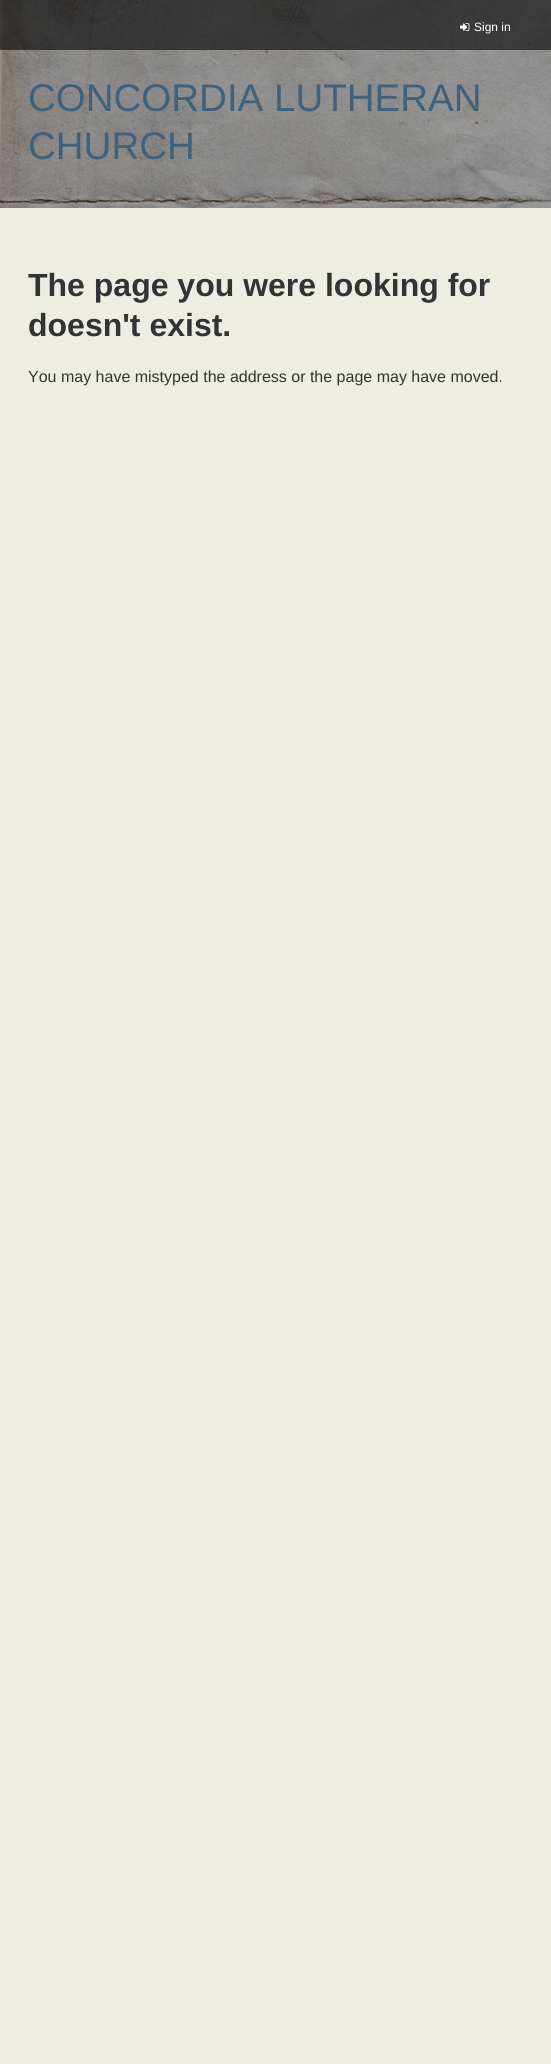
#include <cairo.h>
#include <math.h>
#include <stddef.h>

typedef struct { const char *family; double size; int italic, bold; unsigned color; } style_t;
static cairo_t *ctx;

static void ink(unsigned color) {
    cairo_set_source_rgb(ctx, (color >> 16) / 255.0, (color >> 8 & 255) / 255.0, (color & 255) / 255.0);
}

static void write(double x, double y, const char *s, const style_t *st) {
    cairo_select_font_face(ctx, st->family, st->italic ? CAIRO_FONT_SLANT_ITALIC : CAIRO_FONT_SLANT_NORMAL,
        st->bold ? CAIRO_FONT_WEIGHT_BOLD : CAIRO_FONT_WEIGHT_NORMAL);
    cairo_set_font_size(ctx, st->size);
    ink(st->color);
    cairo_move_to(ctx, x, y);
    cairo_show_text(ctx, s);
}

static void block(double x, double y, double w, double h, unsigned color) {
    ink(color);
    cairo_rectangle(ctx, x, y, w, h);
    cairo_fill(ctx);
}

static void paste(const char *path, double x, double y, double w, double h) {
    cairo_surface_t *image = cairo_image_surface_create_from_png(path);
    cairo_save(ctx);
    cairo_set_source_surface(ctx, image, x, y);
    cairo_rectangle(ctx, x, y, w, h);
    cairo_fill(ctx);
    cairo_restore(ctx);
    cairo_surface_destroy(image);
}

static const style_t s1 = {"Liberation Sans", 12, 0, 0, 0xffffff};
static const style_t s2 = {"Liberation Sans", 38.5, 0, 0, 0x3e627c};
static const style_t s3 = {"Liberation Sans", 32, 0, 1, 0x333333};
static const style_t s4 = {"Liberation Sans", 16, 0, 0, 0x333333};

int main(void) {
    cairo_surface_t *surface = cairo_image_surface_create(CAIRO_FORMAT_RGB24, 551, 2066);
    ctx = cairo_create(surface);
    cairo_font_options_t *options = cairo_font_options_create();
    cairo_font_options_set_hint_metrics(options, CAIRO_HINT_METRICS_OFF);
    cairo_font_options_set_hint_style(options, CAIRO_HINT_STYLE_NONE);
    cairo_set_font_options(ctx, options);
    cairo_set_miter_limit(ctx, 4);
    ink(0xedeee1);
    cairo_paint(ctx);
    block(0, 0, 4, 192, 0x8e8f87);
    paste("pic2.png", 0, 0, 551, 208);
    cairo_set_source_rgba(ctx, 0, 0, 0, 0.6);
    cairo_rectangle(ctx, 0, 0, 551, 50);
    cairo_fill(ctx);
    paste("pic1.png", 460, 23, 10, 8);
    write(474, 31, "Sign in", &s1);
    write(28, 111, "CONCORDIA LUTHERAN", &s2);
    write(28, 159, "CHURCH", &s2);
    write(28, 296, "The page you were looking for", &s3);
    write(28, 336, "doesn't exist.", &s3);
    write(28, 382, "You may have mistyped the address or the page may have moved.", &s4);
    block(0, 2064, 551, 2, 0xffffff);
    cairo_surface_write_to_png(surface, "screenshot.png");
    cairo_font_options_destroy(options);
    cairo_destroy(ctx);
    cairo_surface_destroy(surface);
    return 0;
}
